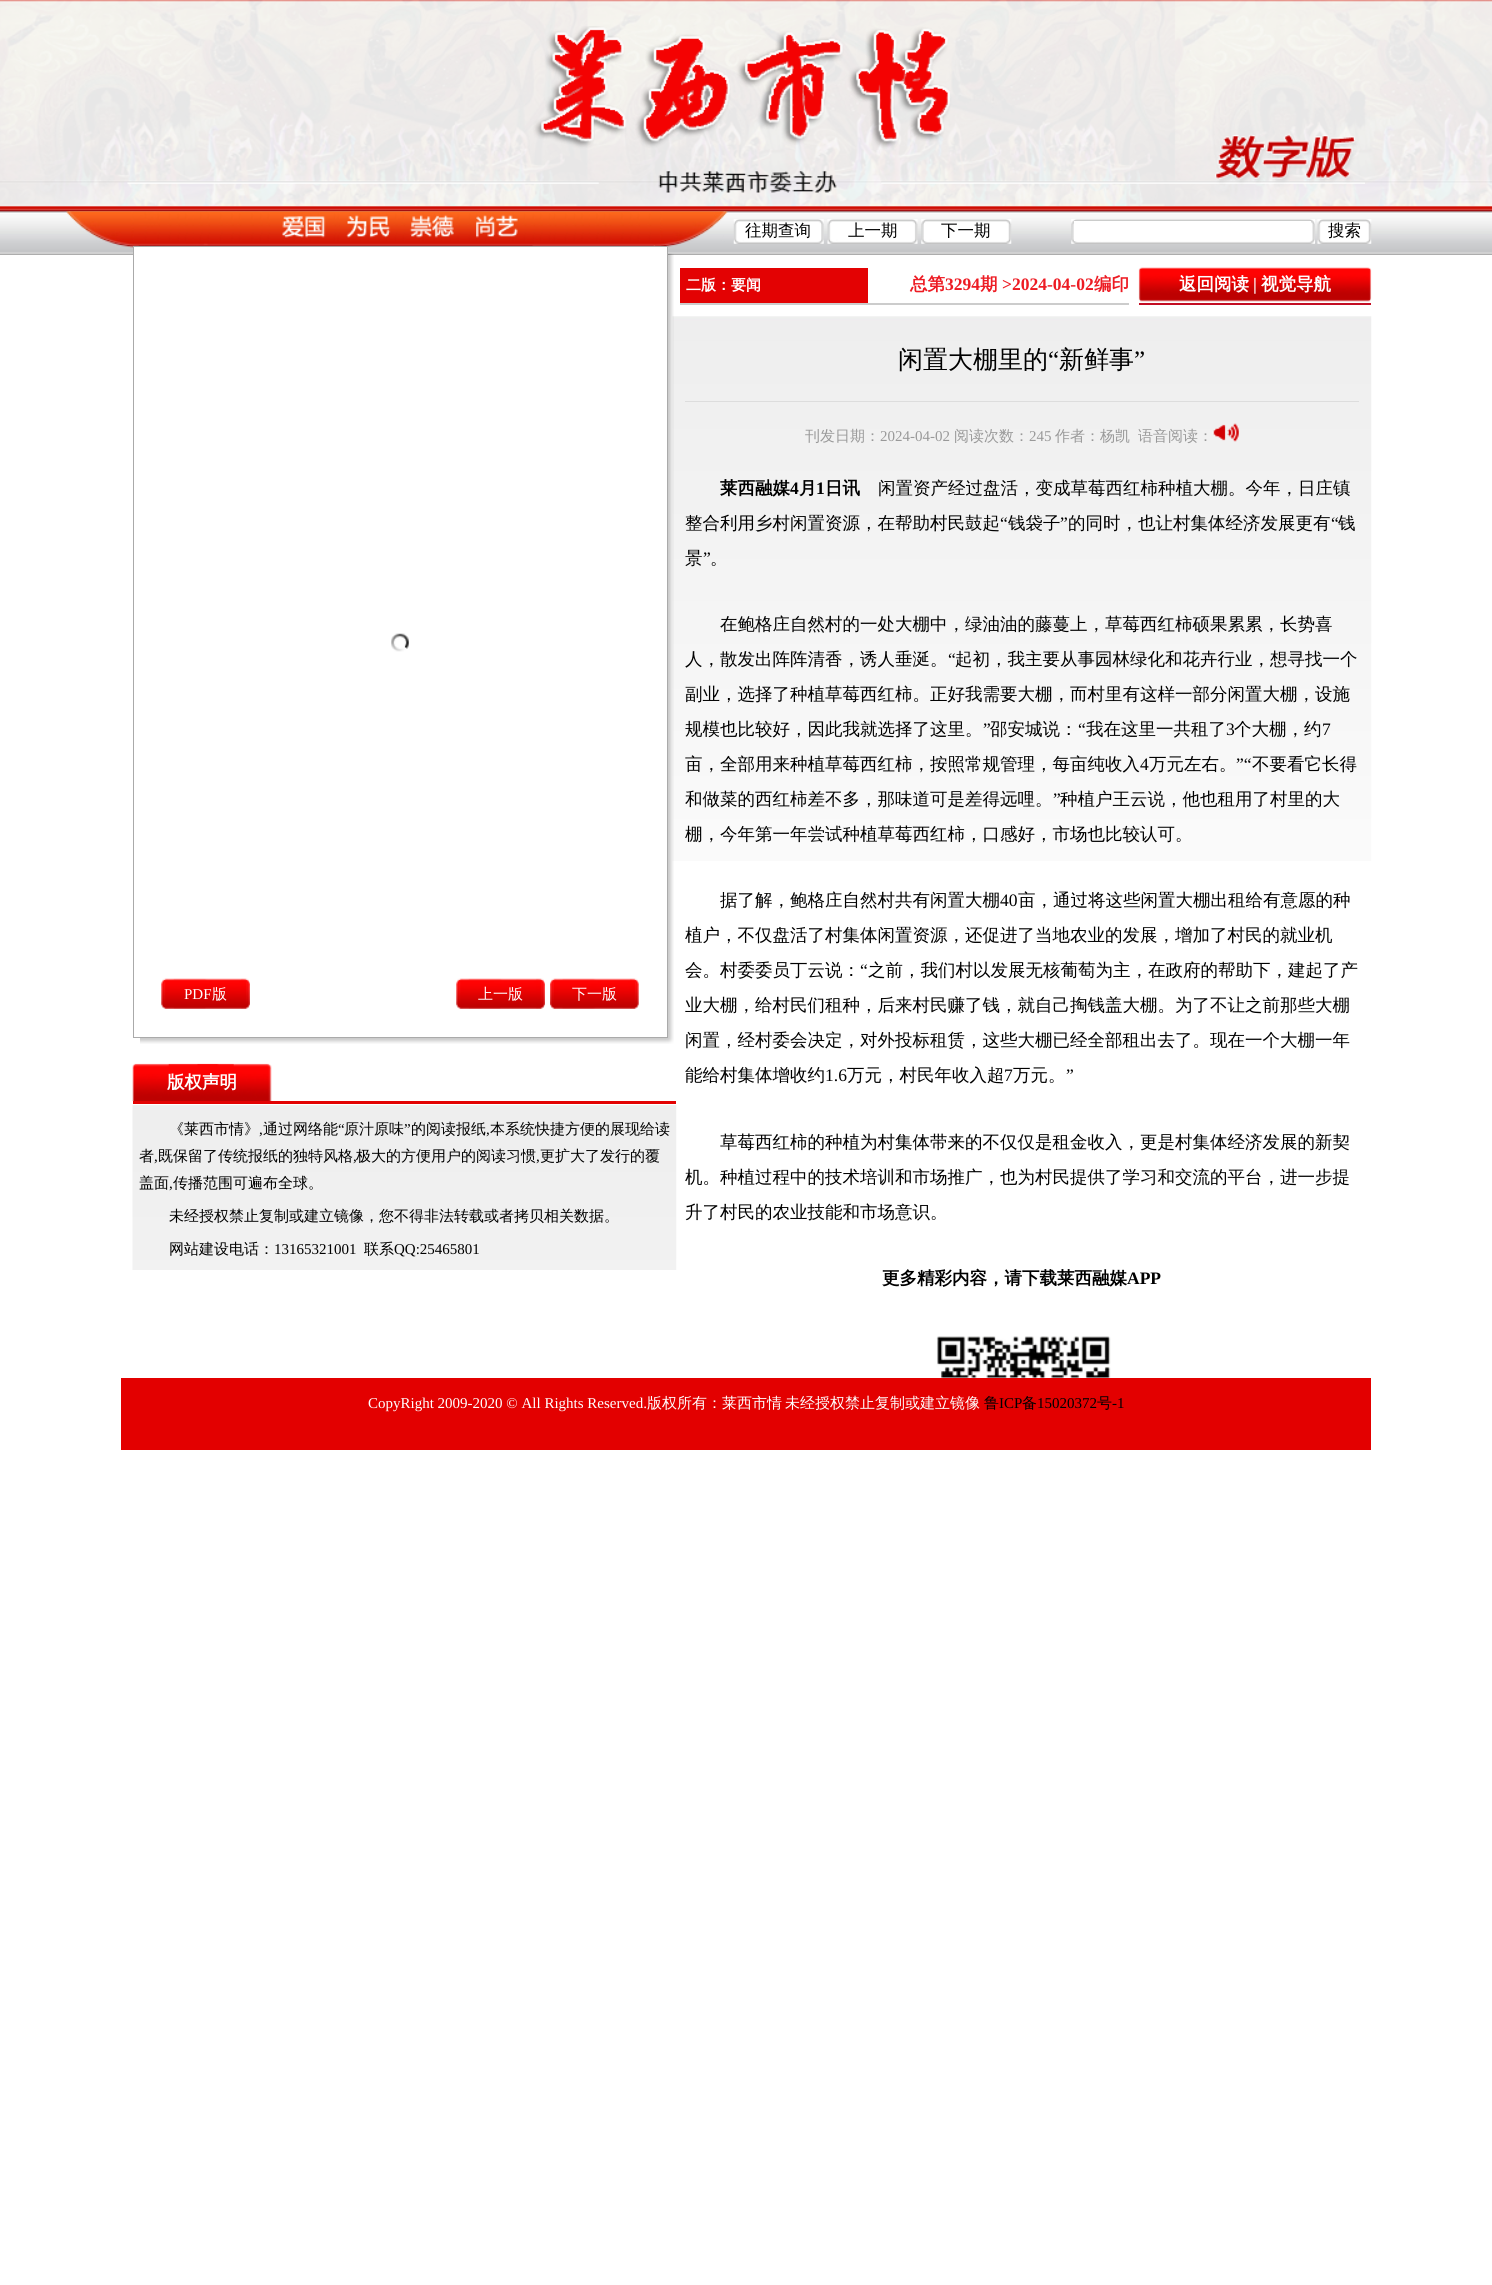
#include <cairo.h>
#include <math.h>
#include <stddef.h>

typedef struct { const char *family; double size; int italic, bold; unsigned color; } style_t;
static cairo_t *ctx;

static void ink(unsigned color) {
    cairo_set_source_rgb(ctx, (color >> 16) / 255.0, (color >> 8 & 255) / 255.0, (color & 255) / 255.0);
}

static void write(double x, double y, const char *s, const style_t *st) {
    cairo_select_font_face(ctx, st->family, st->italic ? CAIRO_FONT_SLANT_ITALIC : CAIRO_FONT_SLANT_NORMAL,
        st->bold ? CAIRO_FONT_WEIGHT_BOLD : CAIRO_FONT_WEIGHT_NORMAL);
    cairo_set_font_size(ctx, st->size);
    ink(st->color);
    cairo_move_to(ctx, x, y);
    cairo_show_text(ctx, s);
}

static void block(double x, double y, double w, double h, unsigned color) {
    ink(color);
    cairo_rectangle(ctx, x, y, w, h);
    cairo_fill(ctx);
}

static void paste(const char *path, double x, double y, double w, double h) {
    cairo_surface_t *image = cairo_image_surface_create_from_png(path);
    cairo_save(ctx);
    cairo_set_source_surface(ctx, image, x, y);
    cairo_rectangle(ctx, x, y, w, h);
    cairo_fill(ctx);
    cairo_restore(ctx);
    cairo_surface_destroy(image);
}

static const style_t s1 = {"WenQuanYi Zen Hei Medium", 16.5, 0, 0, 0x000000};
static const style_t s2 = {"WenQuanYi Zen Hei", 15, 0, 1, 0xffffff};
static const style_t s3 = {"WenQuanYi Zen Hei", 17.5, 0, 1, 0xed1b23};
static const style_t s4 = {"Liberation Serif", 17.5, 0, 1, 0xed1b23};
static const style_t s5 = {"WenQuanYi Zen Hei", 17.5, 0, 1, 0xffffff};
static const style_t s6 = {"Liberation Serif", 17.5, 0, 1, 0xffffff};
static const style_t s7 = {"Liberation Serif", 15, 0, 0, 0xffffff};
static const style_t s8 = {"WenQuanYi Zen Hei Medium", 15, 0, 0, 0xffffff};
static const style_t s9 = {"WenQuanYi Zen Hei Medium", 15, 0, 0, 0x000000};
static const style_t s10 = {"Liberation Serif", 15, 0, 0, 0x000000};
static const style_t s11 = {"WenQuanYi Zen Hei Medium", 25, 0, 0, 0x000000};
static const style_t s12 = {"Liberation Serif", 25, 0, 0, 0x000000};
static const style_t s13 = {"WenQuanYi Zen Hei Medium", 15, 0, 0, 0x999999};
static const style_t s14 = {"Liberation Serif", 15, 0, 0, 0x999999};
static const style_t s15 = {"WenQuanYi Zen Hei", 17.5, 0, 1, 0x000000};
static const style_t s16 = {"Liberation Serif", 17.5, 0, 1, 0x000000};
static const style_t s17 = {"WenQuanYi Zen Hei Medium", 17.5, 0, 0, 0x000000};
static const style_t s18 = {"Liberation Serif", 17.5, 0, 0, 0x000000};

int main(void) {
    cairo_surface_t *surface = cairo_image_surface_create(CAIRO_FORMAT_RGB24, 1492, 2285);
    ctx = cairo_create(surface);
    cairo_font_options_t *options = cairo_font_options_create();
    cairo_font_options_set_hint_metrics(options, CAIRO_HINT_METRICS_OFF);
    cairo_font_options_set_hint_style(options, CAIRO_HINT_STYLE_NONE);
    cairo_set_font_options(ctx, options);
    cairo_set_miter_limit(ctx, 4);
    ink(0xffffff);
    cairo_paint(ctx);
    paste("pic1.png", 0, 0, 1492, 255);
    paste("pic2.png", 0, 0, 1492, 206);
    paste("pic3.png", 127, 26, 1238, 167);
    paste("pic4.png", 66, 211, 662, 37);
    paste("pic5.png", 733, 219, 91, 25);
    write(745, 236, "往期查询", &s1);
    paste("pic6.png", 827, 219, 91, 25);
    write(848, 236, "上一期", &s1);
    paste("pic7.png", 921, 219, 91, 25);
    write(941, 236, "下一期", &s1);
    paste("pic8.png", 1071, 219, 244, 25);
    block(1074, 221, 237, 20, 0xffffff);
    paste("pic9.png", 1317, 219, 55, 25);
    write(1328, 236, "搜索", &s1);
    block(680, 303, 449, 2, 0xcccccc);
    block(680, 268, 188, 35, 0xe30203);
    write(686, 290, "二版：要闻", &s2);
    write(910, 290, "总第", &s3);
    write(945, 290, "3294", &s4);
    write(980, 290, "期", &s3);
    write(1002, 290, ">2024-04-02", &s4);
    write(1094, 290, "编印", &s3);
    paste("pic10.png", 1138, 267, 234, 35);
    block(1139, 303, 232, 2, 0xc30d23);
    write(1179, 290, "返回阅读", &s5);
    write(1253, 290, "|", &s6);
    write(1261, 290, "视觉导航", &s5);
    paste("pic17.png", 672, 316, 700, 545);
    paste("pic11.png", 140, 253, 534, 791);
    block(134, 247, 533, 8, 0xffffff);
    cairo_rectangle(ctx, 133.5, 246.5, 534, 791);
    ink(0xaaaaaa);
    cairo_set_line_width(ctx, 1);
    cairo_stroke(ctx);
    paste("pic12.png", 391, 633, 18, 19);
    paste("pic13.png", 161, 978, 89, 31);
    write(184, 999, "PDF", &s7);
    write(212, 999, "版", &s8);
    paste("pic13.png", 456, 978, 89, 31);
    write(478, 999, "上一版", &s8);
    paste("pic14.png", 550, 978, 89, 31);
    write(572, 999, "下一版", &s8);
    paste("pic15.png", 132, 1105, 545, 165);
    block(133, 1101, 543, 3, 0xe30203);
    paste("pic16.png", 132, 1063, 140, 38);
    write(167, 1088, "版权声明", &s5);
    write(169, 1134, "《莱西市情》", &s9);
    write(263, 1134, "通过网络能", &s9);
    write(338, 1134, "“", &s10);
    write(344, 1134, "原汁原味", &s9);
    write(404, 1134, "”", &s10);
    write(411, 1134, "的阅读报纸", &s9);
    write(490, 1134, "本系统快捷方便的展现给读", &s9);
    write(259, 1134, ",", &s10);
    write(486, 1134, ",", &s10);
    write(139, 1161, "者", &s9);
    write(154, 1161, ",", &s10);
    write(158, 1161, "既保留了传统报纸的独特风格", &s9);
    write(353, 1161, ",", &s10);
    write(356, 1161, "极大的方便用户的阅读习惯", &s9);
    write(536, 1161, ",", &s10);
    write(540, 1161, "更扩大了发行的覆", &s9);
    write(139, 1188, "盖面", &s9);
    write(169, 1188, ",", &s10);
    write(173, 1188, "传播范围可遍布全球。", &s9);
    write(169, 1221, "未经授权禁止复制或建立镜像，您不得非法转载或者拷贝相关数据。", &s9);
    write(169, 1254, "网站建设电话：", &s9);
    write(274, 1254, "13165321001", &s10);
    write(364, 1254, "联系", &s9);
    write(394, 1254, "QQ:25465801", &s10);
    write(898, 368, "闲置大棚里的", &s11);
    write(1048, 368, "“", &s12);
    write(1059, 368, "新鲜事", &s11);
    write(1134, 368, "”", &s12);
    block(685, 401, 674, 1, 0xdddddd);
    write(805, 441, "刊发日期：", &s13);
    write(880, 441, "2024-04-02", &s14);
    write(954, 441, "阅读次数：", &s13);
    write(1029, 441, "245", &s14);
    write(1055, 441, "作者：杨凯", &s13);
    write(1138, 441, "语音阅读：", &s13);
    paste("pic18.png", 1212, 423, 27, 19);
    write(720, 494, "莱西融媒", &s15);
    write(790, 494, "4", &s16);
    write(799, 494, "月", &s15);
    write(816, 494, "1", &s16);
    write(825, 494, "日讯", &s15);
    write(878, 494, "闲置资产经过盘活，变成草莓西红柿种植大棚。今年，日庄镇", &s17);
    write(685, 529, "整合利用乡村闲置资源，在帮助村民鼓起", &s17);
    write(1000, 529, "“", &s18);
    write(1008, 529, "钱袋子", &s17);
    write(1060, 529, "”", &s18);
    write(1068, 529, "的同时，也让村集体经济发展更有", &s17);
    write(1331, 529, "“", &s18);
    write(1338, 529, "钱", &s17);
    write(685, 564, "景", &s17);
    write(703, 564, "”", &s18);
    write(710, 564, "。", &s17);
    write(720, 630, "在鲍格庄自然村的一处大棚中，绿油油的藤蔓上，草莓西红柿硕果累累，长势喜", &s17);
    write(685, 665, "人，散发出阵阵清香，诱人垂涎。", &s17);
    write(948, 665, "“", &s18);
    write(955, 665, "起初，我主要从事园林绿化和花卉行业，想寻找一个", &s17);
    write(685, 700, "副业，选择了种植草莓西红柿。正好我需要大棚，而村里有这样一部分闲置大棚，设施", &s17);
    write(685, 735, "规模也比较好，因此我就选择了这里。", &s17);
    write(983, 735, "”", &s18);
    write(990, 735, "邵安城说：", &s17);
    write(1078, 735, "“", &s18);
    write(1086, 735, "我在这里一共租了", &s17);
    write(1226, 735, "3", &s18);
    write(1234, 735, "个大棚，约", &s17);
    write(1322, 735, "7", &s18);
    write(685, 770, "亩，全部用来种植草莓西红柿，按照常规管理，每亩纯收入", &s17);
    write(1140, 770, "4", &s18);
    write(1149, 770, "万元左右。", &s17);
    write(1236, 770, "”“", &s18);
    write(1252, 770, "不要看它长得", &s17);
    write(685, 805, "和做菜的西红柿差不多，那味道可是差得远哩。", &s17);
    write(1053, 805, "”", &s18);
    write(1060, 805, "种植户王云说，他也租用了村里的大", &s17);
    write(685, 840, "棚，今年第一年尝试种植草莓西红柿，口感好，市场也比较认可。", &s17);
    write(720, 906, "据了解，鲍格庄自然村共有闲置大棚", &s17);
    write(1000, 906, "40", &s18);
    write(1018, 906, "亩，通过将这些闲置大棚出租给有意愿的种", &s17);
    write(685, 941, "植户，不仅盘活了村集体闲置资源，还促进了当地农业的发展，增加了村民的就业机", &s17);
    write(685, 976, "会。村委委员丁云说：", &s17);
    write(860, 976, "“", &s18);
    write(868, 976, "之前，我们村以发展无核葡萄为主，在政府的帮助下，建起了产", &s17);
    write(685, 1011, "业大棚，给村民们租种，后来村民赚了钱，就自己掏钱盖大棚。为了不让之前那些大棚", &s17);
    write(685, 1046, "闲置，经村委会决定，对外投标租赁，这些大棚已经全部租出去了。现在一个大棚一年", &s17);
    write(685, 1081, "能给村集体增收约", &s17);
    write(825, 1081, "1.6", &s18);
    write(847, 1081, "万元，村民年收入超", &s17);
    write(1004, 1081, "7", &s18);
    write(1013, 1081, "万元。", &s17);
    write(1066, 1081, "”", &s18);
    write(720, 1148, "草莓西红柿的种植为村集体带来的不仅仅是租金收入，更是村集体经济发展的新契", &s17);
    write(685, 1183, "机。种植过程中的技术培训和市场推广，也为村民提供了学习和交流的平台，进一步提", &s17);
    write(685, 1218, "升了村民的农业技能和市场意识。", &s17);
    write(882, 1284, "更多精彩内容，请下载莱西融媒", &s15);
    write(1127, 1284, "APP", &s16);
    paste("pic19.png", 936, 1336, 175, 42);
    block(121, 1378, 1250, 72, 0xe30000);
    write(368, 1408, "CopyRight 2009-2020 © All Rights Reserved.", &s7);
    write(647, 1408, "版权所有：莱西市情", &s8);
    write(785, 1408, "未经授权禁止复制或建立镜像", &s8);
    write(984, 1408, "鲁", &s9);
    write(999, 1408, "ICP", &s10);
    write(1022, 1408, "备", &s9);
    write(1037, 1408, "15020372", &s10);
    write(1097, 1408, "号", &s9);
    write(1112, 1408, "-1", &s10);
    cairo_surface_write_to_png(surface, "screenshot.png");
    cairo_font_options_destroy(options);
    cairo_destroy(ctx);
    cairo_surface_destroy(surface);
    return 0;
}
